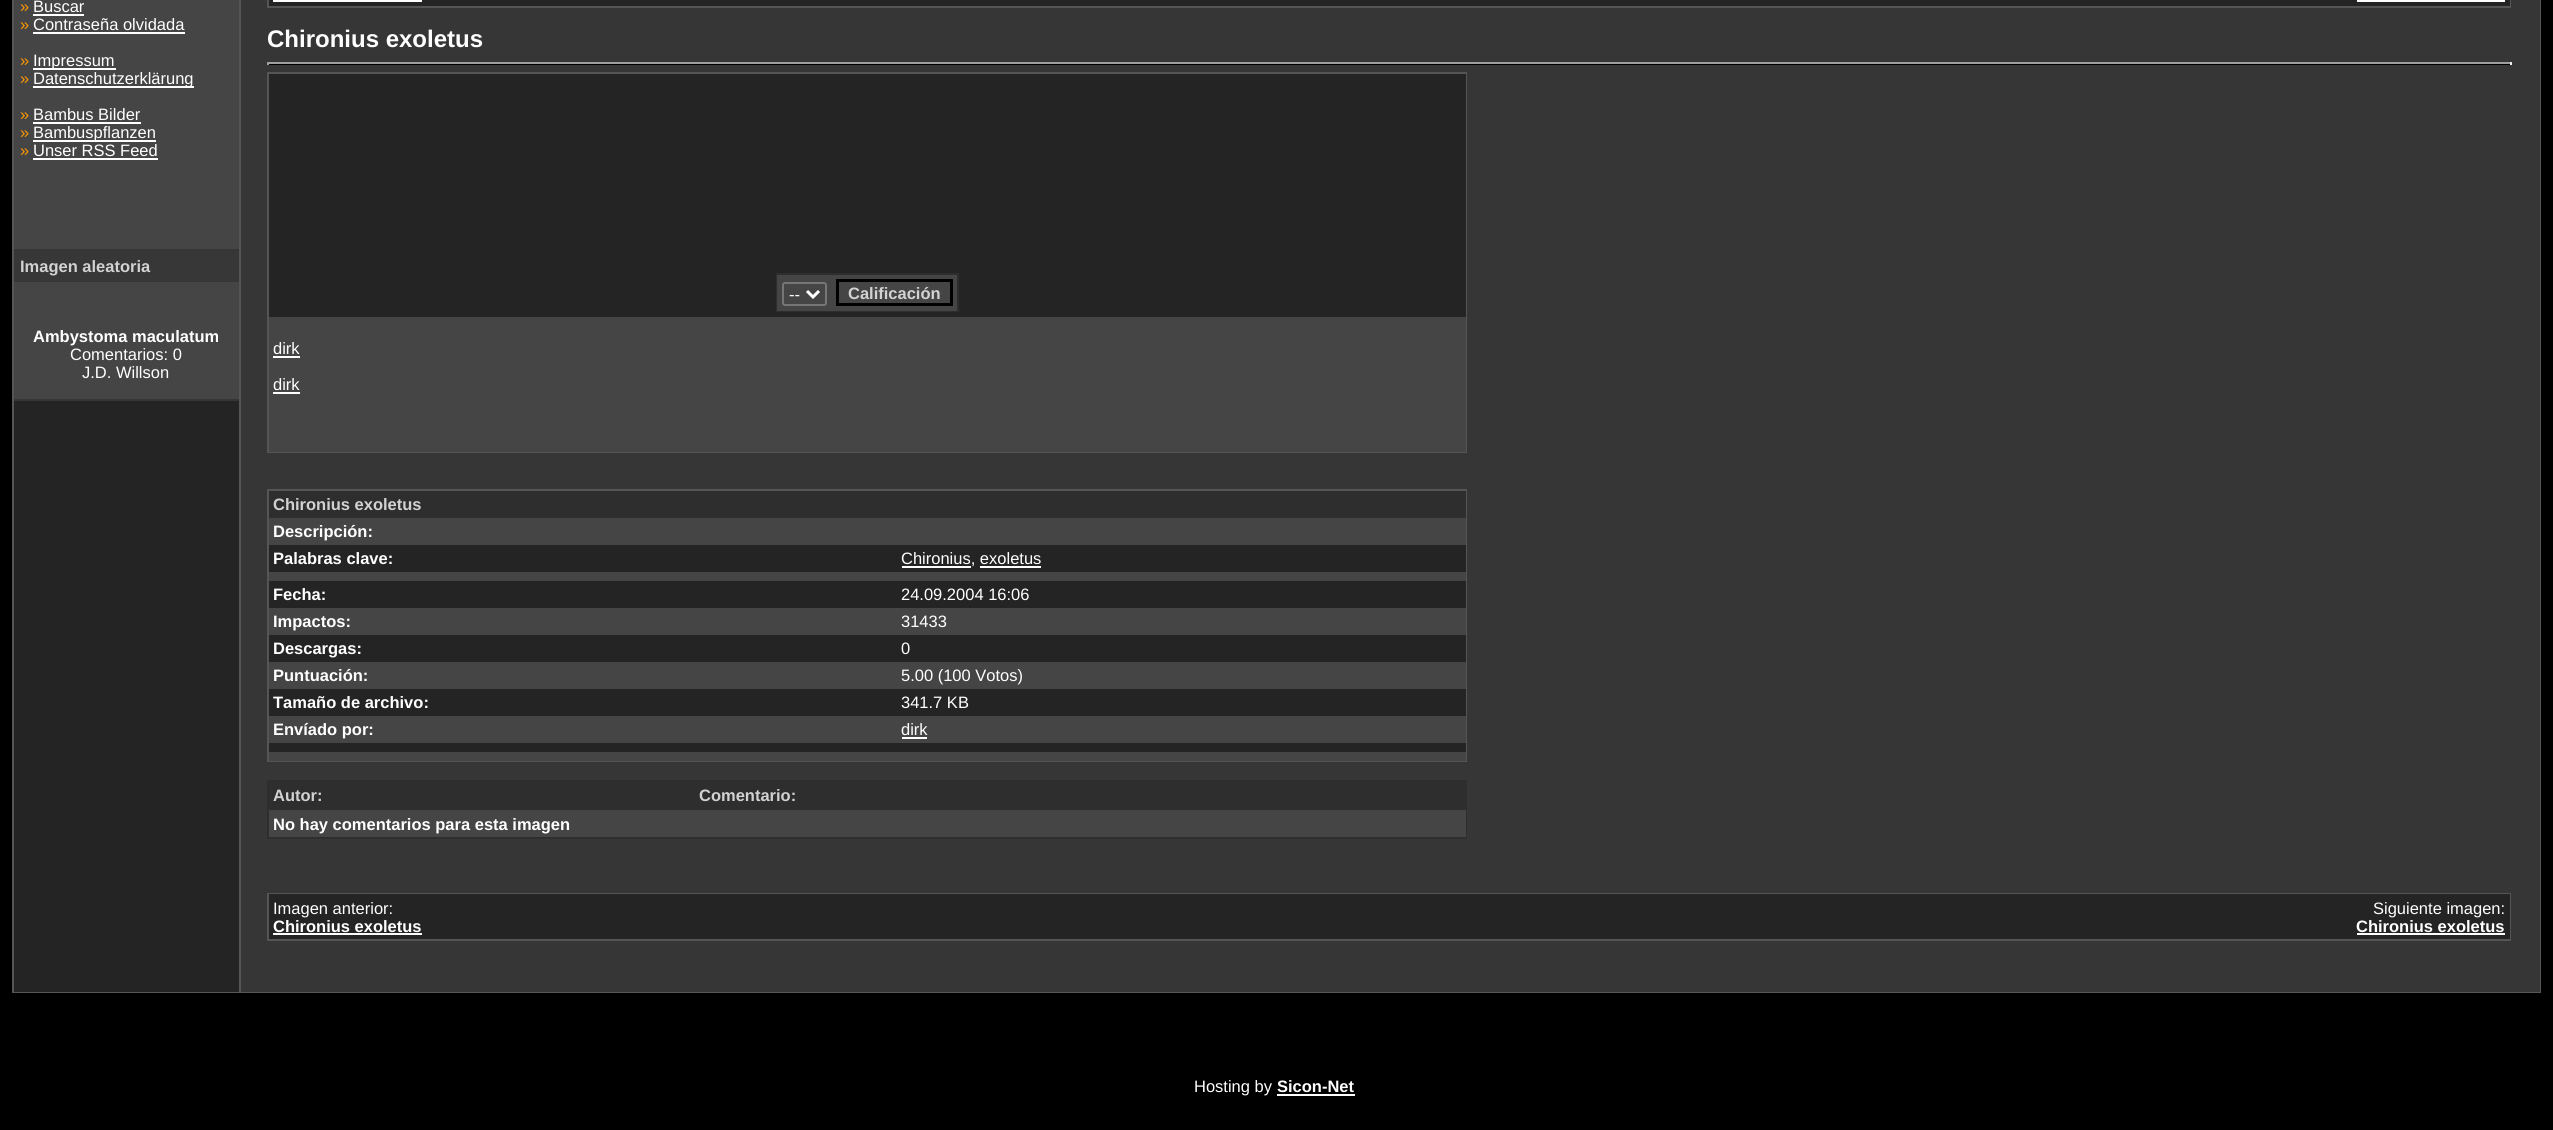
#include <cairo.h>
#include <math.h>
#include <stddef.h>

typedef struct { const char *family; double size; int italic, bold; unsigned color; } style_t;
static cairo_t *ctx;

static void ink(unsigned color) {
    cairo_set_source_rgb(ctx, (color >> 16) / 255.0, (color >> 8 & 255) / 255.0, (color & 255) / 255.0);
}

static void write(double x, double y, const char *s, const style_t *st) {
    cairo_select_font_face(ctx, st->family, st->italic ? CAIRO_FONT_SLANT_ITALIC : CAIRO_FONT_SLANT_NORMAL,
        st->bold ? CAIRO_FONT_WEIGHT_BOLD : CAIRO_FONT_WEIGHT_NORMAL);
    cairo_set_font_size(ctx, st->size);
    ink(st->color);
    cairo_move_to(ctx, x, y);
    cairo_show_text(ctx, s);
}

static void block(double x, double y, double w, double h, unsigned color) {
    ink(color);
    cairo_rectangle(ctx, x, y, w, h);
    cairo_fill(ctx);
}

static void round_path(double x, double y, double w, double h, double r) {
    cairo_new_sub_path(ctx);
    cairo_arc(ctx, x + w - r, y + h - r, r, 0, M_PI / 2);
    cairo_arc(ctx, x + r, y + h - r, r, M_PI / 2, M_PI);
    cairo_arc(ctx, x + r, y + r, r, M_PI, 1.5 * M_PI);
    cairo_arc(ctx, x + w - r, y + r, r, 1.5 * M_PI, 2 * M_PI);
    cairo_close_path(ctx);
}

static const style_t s1 = {"Liberation Sans", 16.5, 0, 0, 0xfe9900};
static const style_t s2 = {"Liberation Sans", 16.5, 0, 0, 0xffffff};
static const style_t s3 = {"Liberation Sans", 16.5, 0, 1, 0xd2d2d2};
static const style_t s4 = {"Liberation Sans", 16.5, 0, 1, 0xffffff};
static const style_t s5 = {"Liberation Sans", 24, 0, 1, 0xffffff};

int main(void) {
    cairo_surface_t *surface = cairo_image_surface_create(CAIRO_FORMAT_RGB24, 2553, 1130);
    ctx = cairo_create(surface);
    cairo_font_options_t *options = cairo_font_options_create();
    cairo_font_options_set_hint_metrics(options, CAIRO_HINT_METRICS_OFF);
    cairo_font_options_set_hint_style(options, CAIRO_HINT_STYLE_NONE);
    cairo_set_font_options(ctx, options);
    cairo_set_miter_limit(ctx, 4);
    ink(0x000000);
    cairo_paint(ctx);
    block(12, 0, 2529, 993, 0x555555);
    block(241, 0, 2299, 992, 0x363636);
    block(14, 401, 225, 591, 0x242424);
    block(14, 0, 225, 249, 0x454545);
    write(20, 12, "»", &s1);
    write(33, 12, "Buscar", &s2);
    block(33, 14, 51, 2, 0xffffff);
    write(20, 30, "»", &s1);
    write(33, 30, "Contraseña olvidada", &s2);
    block(33, 32, 152, 2, 0xffffff);
    write(20, 66, "»", &s1);
    block(33, 68, 83, 2, 0xffffff);
    write(33, 66, "Impressum", &s2);
    write(20, 84, "»", &s1);
    block(33, 86, 161, 2, 0xffffff);
    write(33, 84, "Datenschutzerklärung", &s2);
    write(20, 120, "»", &s1);
    write(33, 120, "Bambus Bilder", &s2);
    block(33, 122, 108, 2, 0xffffff);
    write(20, 138, "»", &s1);
    block(33, 140, 123, 2, 0xffffff);
    write(33, 138, "Bambuspflanzen", &s2);
    write(20, 156, "»", &s1);
    write(33, 156, "Unser RSS Feed", &s2);
    block(33, 158, 125, 2, 0xffffff);
    block(14, 249, 225, 2, 0x363636);
    block(14, 251, 225, 30, 0x373737);
    write(20, 272, "Imagen aleatoria", &s3);
    block(14, 281, 225, 1, 0x363636);
    block(14, 282, 225, 117, 0x454545);
    write(33, 342, "Ambystoma maculatum", &s4);
    write(70, 360, "Comentarios: 0", &s2);
    write(82, 378, "J.D. Willson", &s2);
    block(14, 399, 225, 2, 0x363636);
    block(267, 0, 2244, 8, 0x555555);
    block(269, 0, 2241, 6, 0x242424);
    block(273, 0, 149, 2, 0xffffff);
    block(2357, 0, 148, 2, 0xffffff);
    write(267, 47, "Chironius exoletus", &s5);
    block(267, 64, 2244, 1, 0x000000);
    block(267, 62, 2244, 2, 0x9f9f9f);
    block(2510, 62, 2, 3, 0xeeeeee);
    block(267, 62, 2, 3, 0x9f9f9f);
    block(267, 72, 1200, 381, 0x555555);
    block(269, 74, 1197, 243, 0x242424);
    block(776, 273, 183, 39, 0x2e2e2e);
    block(777, 275, 180, 36, 0x454545);
    round_path(783, 283, 43, 22, 2);
    ink(0x767676);
    cairo_stroke(ctx);
    cairo_new_path(ctx);
    cairo_move_to(ctx, 807, 291);
    cairo_line_to(ctx, 813, 297);
    cairo_line_to(ctx, 819, 291);
    ink(0xffffff);
    cairo_set_line_width(ctx, 3);
    cairo_stroke(ctx);
    write(789, 300, "--", &s2);
    cairo_rectangle(ctx, 837.5, 280.5, 114, 24);
    ink(0x000000);
    cairo_stroke(ctx);
    write(848, 299, "Calificación", &s3);
    block(269, 317, 1197, 135, 0x454545);
    write(273, 354, "dirk", &s2);
    block(273, 356, 27, 2, 0xffffff);
    write(273, 390, "dirk", &s2);
    block(273, 392, 27, 2, 0xffffff);
    block(267, 489, 1200, 273, 0x555555);
    block(269, 491, 1197, 27, 0x2e2e2e);
    write(273, 510, "Chironius exoletus", &s3);
    block(269, 518, 1197, 27, 0x454545);
    write(273, 537, "Descripción:", &s4);
    block(269, 545, 1197, 27, 0x242424);
    write(273, 564, "Palabras clave:", &s4);
    block(902, 566, 69, 2, 0xffffff);
    write(901, 564, "Chironius, exoletus", &s2);
    block(980, 566, 61, 2, 0xffffff);
    block(269, 572, 1197, 9, 0x454545);
    block(269, 581, 1197, 27, 0x242424);
    write(273, 600, "Fecha:", &s4);
    write(901, 600, "24.09.2004 16:06", &s2);
    block(269, 608, 1197, 27, 0x454545);
    write(273, 627, "Impactos:", &s4);
    write(901, 627, "31433", &s2);
    block(269, 635, 1197, 27, 0x242424);
    write(273, 654, "Descargas:", &s4);
    write(901, 654, "0", &s2);
    block(269, 662, 1197, 27, 0x454545);
    write(273, 681, "Puntuación:", &s4);
    write(901, 681, "5.00 (100 Votos)", &s2);
    block(269, 689, 1197, 27, 0x242424);
    write(273, 708, "Tamaño de archivo:", &s4);
    write(901, 708, "341.7 KB", &s2);
    block(269, 716, 1197, 27, 0x454545);
    write(273, 735, "Envíado por:", &s4);
    write(901, 735, "dirk", &s2);
    block(902, 737, 25, 2, 0xffffff);
    block(269, 743, 1197, 9, 0x242424);
    block(269, 752, 1197, 9, 0x454545);
    block(267, 780, 1200, 59, 0x2e2e2e);
    write(273, 801, "Autor:", &s3);
    write(699, 801, "Comentario:", &s3);
    block(269, 810, 1197, 27, 0x454545);
    write(273, 830, "No hay comentarios para esta imagen", &s4);
    block(267, 893, 2244, 48, 0x555555);
    block(269, 894, 2241, 45, 0x242424);
    write(273, 914, "Imagen anterior:", &s2);
    write(273, 932, "Chironius exoletus", &s4);
    block(273, 933, 149, 2, 0xffffff);
    write(2373, 914, "Siguiente imagen:", &s2);
    write(2356, 932, "Chironius exoletus", &s4);
    block(2357, 933, 148, 2, 0xffffff);
    write(1194, 1092, "Hosting by", &s2);
    write(1277, 1092, "Sicon-Net", &s4);
    block(1277, 1094, 78, 2, 0xffffff);
    cairo_surface_write_to_png(surface, "screenshot.png");
    cairo_font_options_destroy(options);
    cairo_destroy(ctx);
    cairo_surface_destroy(surface);
    return 0;
}
